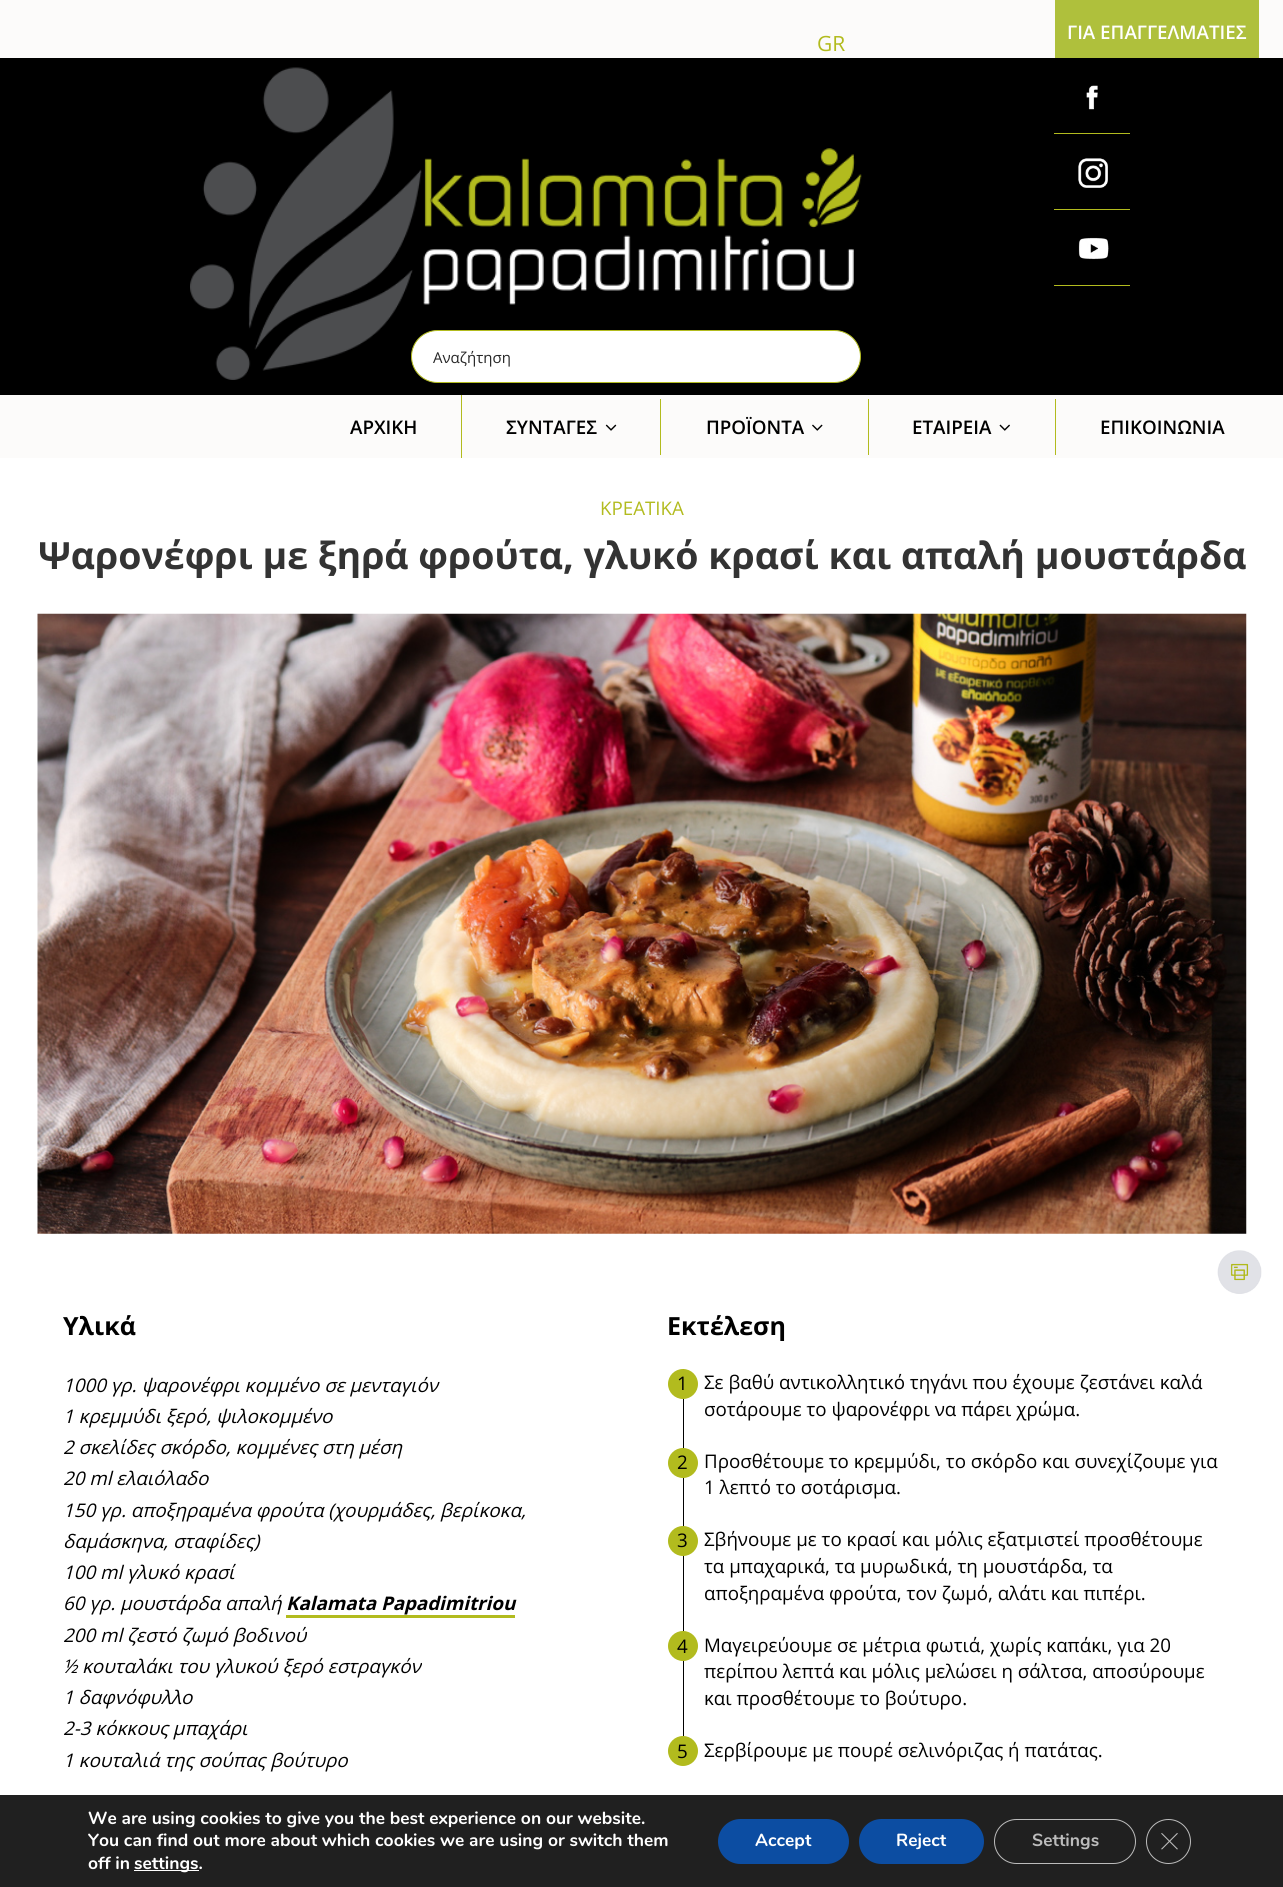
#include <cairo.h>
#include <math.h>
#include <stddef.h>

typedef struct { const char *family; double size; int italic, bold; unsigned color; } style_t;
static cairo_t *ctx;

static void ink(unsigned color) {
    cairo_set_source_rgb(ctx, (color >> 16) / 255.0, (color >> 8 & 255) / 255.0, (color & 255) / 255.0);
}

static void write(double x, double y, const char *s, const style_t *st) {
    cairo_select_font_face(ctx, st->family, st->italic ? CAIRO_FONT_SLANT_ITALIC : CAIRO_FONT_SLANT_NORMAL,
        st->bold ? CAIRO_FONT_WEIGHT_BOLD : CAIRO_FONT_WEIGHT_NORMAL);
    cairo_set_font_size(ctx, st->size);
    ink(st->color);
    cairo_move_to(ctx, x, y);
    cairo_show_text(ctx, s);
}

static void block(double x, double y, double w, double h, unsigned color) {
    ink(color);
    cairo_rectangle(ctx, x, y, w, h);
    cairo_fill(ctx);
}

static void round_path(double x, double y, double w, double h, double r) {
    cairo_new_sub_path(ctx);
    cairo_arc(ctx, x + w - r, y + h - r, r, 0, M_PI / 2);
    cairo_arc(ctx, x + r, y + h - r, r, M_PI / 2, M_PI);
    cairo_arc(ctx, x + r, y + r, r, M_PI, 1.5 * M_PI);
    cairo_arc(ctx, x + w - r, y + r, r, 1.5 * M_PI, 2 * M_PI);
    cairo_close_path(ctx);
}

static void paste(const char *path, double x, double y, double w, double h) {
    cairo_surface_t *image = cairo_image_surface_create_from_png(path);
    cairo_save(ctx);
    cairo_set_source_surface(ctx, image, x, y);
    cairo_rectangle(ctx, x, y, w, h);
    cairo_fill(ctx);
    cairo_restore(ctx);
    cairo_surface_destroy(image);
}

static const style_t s1 = {"Open Sans SemiBold", 18.75, 0, 0, 0xffffff};
static const style_t s2 = {"Open Sans", 21, 0, 0, 0xb2bb1e};
static const style_t s3 = {"Open Sans", 15, 0, 0, 0x262626};
static const style_t s4 = {"Open Sans SemiBold", 18.75, 0, 0, 0x000000};
static const style_t s5 = {"Open Sans", 18.75, 0, 0, 0xb2bb1e};
static const style_t s6 = {"Open Sans", 37.5, 0, 1, 0x333333};
static const style_t s7 = {"Open Sans", 25, 0, 1, 0x000000};
static const style_t s8 = {"Open Sans", 18.75, 1, 0, 0x000000};
static const style_t s9 = {"Open Sans", 18.75, 1, 1, 0x000000};
static const style_t s10 = {"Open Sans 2", 18.75, 1, 0, 0x000000};
static const style_t s11 = {"Open Sans", 18.75, 0, 0, 0x000000};
static const style_t s12 = {"Nunito", 17.5, 0, 1, 0xffffff};
static const style_t s13 = {"Nunito", 17.5, 0, 1, 0xbcbcbc};

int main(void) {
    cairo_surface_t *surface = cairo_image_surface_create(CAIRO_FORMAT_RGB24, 1283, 1887);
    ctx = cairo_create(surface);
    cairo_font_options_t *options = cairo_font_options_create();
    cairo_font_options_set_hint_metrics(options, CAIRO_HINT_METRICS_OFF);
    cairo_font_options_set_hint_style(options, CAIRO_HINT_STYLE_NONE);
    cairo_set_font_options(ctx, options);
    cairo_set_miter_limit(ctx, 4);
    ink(0xfcfbfa);
    cairo_paint(ctx);
    block(1055, 0, 204, 58, 0xafc03c);
    write(1067, 39, "ΓΙΑ ΕΠΑΓΓΕΛΜΑΤΙΕΣ", &s1);
    write(817, 51, "GR", &s2);
    block(0, 58, 1283, 337, 0x000000);
    block(1054, 133, 76, 1, 0xb2bb1e);
    paste("pic1.png", 1086, 85, 12, 25);
    block(1054, 209, 76, 1, 0xb2bb1e);
    paste("pic2.png", 1078, 158, 30, 30);
    block(1054, 285, 76, 1, 0xb2bb1e);
    paste("pic3.png", 1078, 237, 31, 23);
    paste("pic4.png", 190, 67, 232, 313);
    ink(0xffffff);
    round_path(411.5, 330.5, 449, 52, 26);
    cairo_fill_preserve(ctx);
    ink(0xb2bb1e);
    cairo_set_line_width(ctx, 1);
    cairo_stroke(ctx);
    write(433, 363, "Αναζήτηση", &s3);
    paste("pic5.png", 423, 148, 439, 157);
    write(350, 434, "ΑΡΧΙΚΗ", &s4);
    block(461, 395, 1, 63, 0xb2bb1e);
    write(506, 434, "ΣΥΝΤΑΓΕΣ", &s4);
    block(660, 399, 1, 56, 0xb2bb1e);
    paste("pic6.png", 605, 424, 12, 7);
    write(706, 434, "ΠΡΟΪΟΝΤΑ", &s4);
    block(868, 399, 1, 56, 0xb2bb1e);
    paste("pic7.png", 812, 424, 11, 7);
    write(912, 434, "ΕΤΑΙΡΕΙΑ", &s4);
    block(1055, 399, 1, 56, 0xb2bb1e);
    paste("pic8.png", 999, 424, 11, 7);
    write(1100, 434, "ΕΠΙΚΟΙΝΩΝΙΑ", &s4);
    block(0, 458, 1283, 1337, 0xffffff);
    write(600, 515, "ΚΡΕΑΤΙΚΑ", &s5);
    write(38, 569, "Ψαρονέφρι με ξηρά φρούτα, γλυκό κρασί και απαλή μουστάρδα", &s6);
    paste("pic9.png", 37, 613, 1210, 621);
    paste("pic10.png", 1217, 1250, 45, 44);
    write(63, 1335, "Υλικά", &s7);
    write(63, 1392, "1000 γρ. ψαρονέφρι κομμένο σε μενταγιόν", &s8);
    write(63, 1423, "1 κρεμμύδι ξερό, ψιλοκομμένο", &s8);
    write(63, 1454, "2 σκελίδες σκόρδο, κομμένες στη μέση", &s8);
    write(63, 1485, "20 ml ελαιόλαδο", &s8);
    write(63, 1517, "150 γρ. αποξηραμένα φρούτα (χουρμάδες, βερίκοκα,", &s8);
    write(63, 1548, "δαμάσκηνα, σταφίδες)", &s8);
    write(63, 1579, "100 ml γλυκό κρασί", &s8);
    write(63, 1610, "60 γρ. μουστάρδα απαλή", &s8);
    write(286, 1610, "Kalamata Papadimitriou", &s9);
    block(286, 1615, 229, 3, 0xb2bb1e);
    write(63, 1642, "200 ml ζεστό ζωμό βοδινού", &s8);
    write(63, 1673, "½", &s10);
    write(82, 1673, "κουταλάκι του γλυκού ξερό εστραγκόν", &s8);
    write(63, 1704, "1 δαφνόφυλλο", &s8);
    write(63, 1735, "2-3 κόκκους μπαχάρι", &s8);
    write(63, 1767, "1 κουταλιά της σούπας βούτυρο", &s8);
    write(667, 1335, "Εκτέλεση", &s7);
    block(683, 1369, 1, 367, 0x000000);
    write(704, 1389, "Σε βαθύ αντικολλητικό τηγάνι που έχουμε ζεστάνει καλά", &s11);
    ink(0xb2bb1e);
    cairo_new_path(ctx);
    cairo_arc(ctx, 683, 1384, 15, 0, 2 * M_PI);
    cairo_fill(ctx);
    write(677, 1390, "1", &s11);
    write(704, 1416, "σοτάρουμε το ψαρονέφρι να πάρει χρώμα.", &s11);
    ink(0xb2bb1e);
    cairo_new_path(ctx);
    cairo_arc(ctx, 683, 1463, 15, 0, 2 * M_PI);
    cairo_fill(ctx);
    write(677, 1469, "2", &s11);
    write(704, 1468, "Προσθέτουμε το κρεμμύδι, το σκόρδο και συνεχίζουμε για", &s11);
    write(704, 1494, "1 λεπτό το σοτάρισμα.", &s11);
    ink(0xb2bb1e);
    cairo_new_path(ctx);
    cairo_arc(ctx, 683, 1541, 15, 0, 2 * M_PI);
    cairo_fill(ctx);
    write(677, 1547, "3", &s11);
    write(704, 1546, "Σβήνουμε με το κρασί και μόλις εξατμιστεί προσθέτουμε", &s11);
    write(704, 1573, "τα μπαχαρικά, τα μυρωδικά, τη μουστάρδα, τα", &s11);
    write(704, 1600, "αποξηραμένα φρούτα, τον ζωμό, αλάτι και πιπέρι.", &s11);
    ink(0xb2bb1e);
    cairo_new_path(ctx);
    cairo_arc(ctx, 683, 1646, 15, 0, 2 * M_PI);
    cairo_fill(ctx);
    write(677, 1653, "4", &s11);
    write(704, 1652, "Μαγειρεύουμε σε μέτρια φωτιά, χωρίς καπάκι, για 20", &s11);
    write(704, 1678, "περίπου λεπτά και μόλις μελώσει η σάλτσα, αποσύρουμε", &s11);
    write(704, 1705, "και προσθέτουμε το βούτυρο.", &s11);
    ink(0xb2bb1e);
    cairo_new_path(ctx);
    cairo_arc(ctx, 683, 1751, 15, 0, 2 * M_PI);
    cairo_fill(ctx);
    write(677, 1758, "5", &s11);
    write(704, 1757, "Σερβίρουμε με πουρέ σελινόριζας ή πατάτας.", &s11);
    block(0, 1795, 1283, 92, 0x202020);
    write(88, 1824, "We are using cookies to give you the best experience on our website.", &s12);
    write(88, 1846, "You can find out more about which cookies we are using or switch them", &s12);
    write(88, 1869, "off in", &s12);
    block(134, 1870, 65, 1, 0xffffff);
    write(134, 1869, "settings.", &s12);
    ink(0x0c4da2);
    round_path(718, 1819, 131, 45, 22.5);
    cairo_fill(ctx);
    write(755, 1846, "Accept", &s12);
    ink(0x0c4da2);
    round_path(859, 1819, 125, 45, 22.5);
    cairo_fill(ctx);
    write(896, 1846, "Reject", &s12);
    round_path(994.5, 1819.5, 141, 44, 22);
    ink(0xbcbcbc);
    cairo_stroke(ctx);
    write(1032, 1846, "Settings", &s13);
    cairo_new_path(ctx);
    cairo_arc(ctx, 1168.5, 1841.5, 22, 0, 2 * M_PI);
    cairo_stroke(ctx);
    cairo_new_path(ctx);
    cairo_move_to(ctx, 1177, 1833);
    cairo_line_to(ctx, 1178, 1833.5);
    cairo_line_to(ctx, 1162, 1849.5);
    cairo_line_to(ctx, 1161, 1849);
    cairo_close_path(ctx);
    cairo_fill(ctx);
    cairo_new_path(ctx);
    cairo_move_to(ctx, 1161, 1833.5);
    cairo_line_to(ctx, 1162, 1833);
    cairo_line_to(ctx, 1178, 1849);
    cairo_line_to(ctx, 1177, 1849.5);
    cairo_close_path(ctx);
    cairo_fill(ctx);
    cairo_surface_write_to_png(surface, "screenshot.png");
    cairo_font_options_destroy(options);
    cairo_destroy(ctx);
    cairo_surface_destroy(surface);
    return 0;
}
